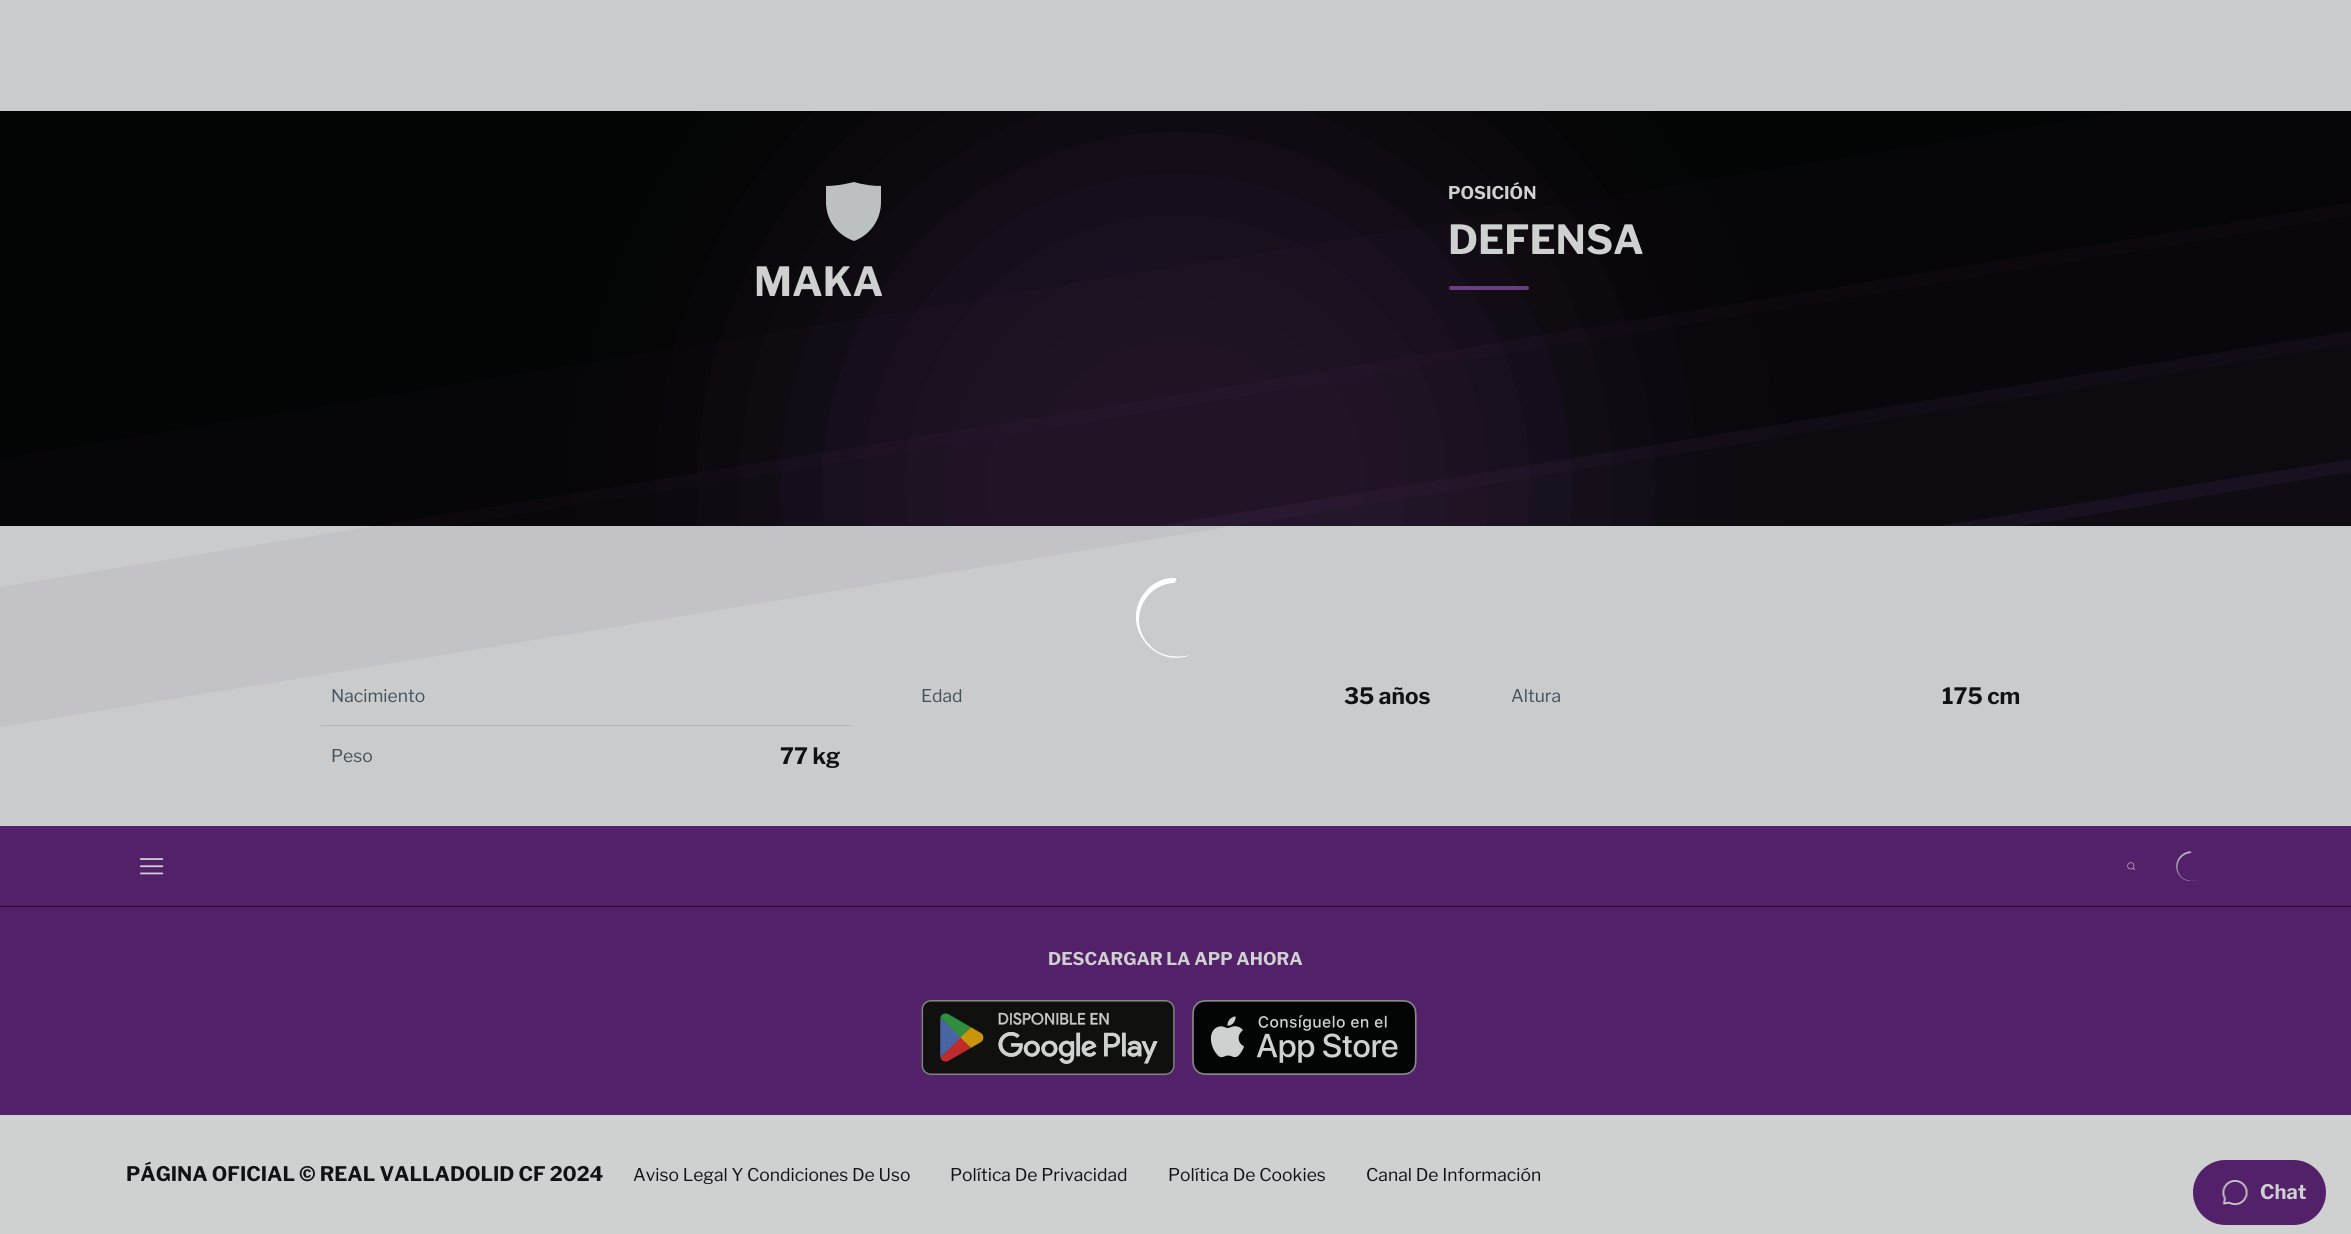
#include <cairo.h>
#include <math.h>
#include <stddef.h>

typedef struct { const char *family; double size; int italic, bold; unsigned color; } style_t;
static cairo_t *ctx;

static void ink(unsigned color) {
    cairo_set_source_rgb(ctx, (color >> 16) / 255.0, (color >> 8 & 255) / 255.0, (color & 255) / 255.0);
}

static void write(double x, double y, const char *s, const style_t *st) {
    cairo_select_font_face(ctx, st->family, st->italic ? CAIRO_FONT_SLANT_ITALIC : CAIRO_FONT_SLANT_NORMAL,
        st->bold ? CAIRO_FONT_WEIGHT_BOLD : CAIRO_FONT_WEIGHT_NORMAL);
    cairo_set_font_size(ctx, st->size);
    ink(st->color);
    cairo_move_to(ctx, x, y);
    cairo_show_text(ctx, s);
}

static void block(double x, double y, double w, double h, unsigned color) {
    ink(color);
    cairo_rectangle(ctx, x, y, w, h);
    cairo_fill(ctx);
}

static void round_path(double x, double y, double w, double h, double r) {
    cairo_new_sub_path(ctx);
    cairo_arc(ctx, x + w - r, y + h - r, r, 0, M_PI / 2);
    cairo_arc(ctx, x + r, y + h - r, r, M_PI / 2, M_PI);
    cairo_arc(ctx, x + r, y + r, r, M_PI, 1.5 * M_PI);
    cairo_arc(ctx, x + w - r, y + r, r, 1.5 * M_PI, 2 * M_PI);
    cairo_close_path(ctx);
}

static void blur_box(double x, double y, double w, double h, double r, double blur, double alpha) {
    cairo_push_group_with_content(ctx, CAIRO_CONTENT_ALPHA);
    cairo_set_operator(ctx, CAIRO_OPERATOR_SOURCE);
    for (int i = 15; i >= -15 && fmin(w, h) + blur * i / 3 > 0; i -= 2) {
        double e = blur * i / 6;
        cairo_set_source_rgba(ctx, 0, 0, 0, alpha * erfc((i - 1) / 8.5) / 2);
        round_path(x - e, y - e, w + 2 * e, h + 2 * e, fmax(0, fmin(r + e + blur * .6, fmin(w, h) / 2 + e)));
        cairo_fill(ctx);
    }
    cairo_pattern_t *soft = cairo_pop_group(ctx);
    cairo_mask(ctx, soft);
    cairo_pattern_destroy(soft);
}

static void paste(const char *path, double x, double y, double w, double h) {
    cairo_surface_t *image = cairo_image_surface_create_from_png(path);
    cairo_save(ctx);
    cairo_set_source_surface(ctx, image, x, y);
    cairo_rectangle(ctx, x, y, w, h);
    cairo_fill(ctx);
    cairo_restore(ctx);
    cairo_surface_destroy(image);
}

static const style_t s1 = {"Libre Franklin", 17.5, 0, 1, 0xcfd0d0};
static const style_t s2 = {"Libre Franklin", 40, 0, 1, 0xcfd0d0};
static const style_t s3 = {"Libre Franklin", 17.5, 0, 0, 0x44515b};
static const style_t s4 = {"Libre Franklin", 22.5, 0, 1, 0x101316};
static const style_t s5 = {"Libre Franklin", 20, 0, 1, 0x101316};
static const style_t s6 = {"Libre Franklin", 17.5, 0, 0, 0x101316};
static const style_t s7 = {"Libre Franklin", 20, 0, 1, 0xcfd0d0};

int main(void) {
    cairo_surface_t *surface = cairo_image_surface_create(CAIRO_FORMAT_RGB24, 2351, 1234);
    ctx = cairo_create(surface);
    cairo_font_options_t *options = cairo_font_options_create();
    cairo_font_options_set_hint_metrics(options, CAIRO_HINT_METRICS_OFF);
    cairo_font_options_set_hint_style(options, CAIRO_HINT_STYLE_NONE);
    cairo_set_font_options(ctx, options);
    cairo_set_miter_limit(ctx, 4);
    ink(0xc9cbcc);
    cairo_paint(ctx);
    block(0, 111, 2351, 415, 0x030404);
    cairo_save(ctx);
    cairo_rectangle(ctx, 0, 111, 2351, 415);
    cairo_clip(ctx);
    ink(0x060507);
    cairo_new_path(ctx);
    cairo_move_to(ctx, 2351, 216);
    cairo_line_to(ctx, 0, 599);
    cairo_line_to(ctx, 0, 459);
    cairo_line_to(ctx, 2351, 75);
    cairo_close_path(ctx);
    cairo_fill(ctx);
    cairo_restore(ctx);
    cairo_set_source_rgba(ctx, 0.416, 0.243, 0.498, 0.06);
    cairo_new_path(ctx);
    cairo_move_to(ctx, 2351, 344);
    cairo_line_to(ctx, 0, 727);
    cairo_line_to(ctx, 0, 587);
    cairo_line_to(ctx, 2351, 203);
    cairo_close_path(ctx);
    cairo_fill(ctx);
    cairo_save(ctx);
    cairo_rectangle(ctx, 0, 111, 2351, 415);
    cairo_clip(ctx);
    cairo_set_source_rgba(ctx, 0.416, 0.243, 0.498, 0.1);
    cairo_new_path(ctx);
    cairo_move_to(ctx, 2351, 472);
    cairo_line_to(ctx, 0, 855);
    cairo_line_to(ctx, 0, 715);
    cairo_line_to(ctx, 2351, 331);
    cairo_close_path(ctx);
    cairo_fill(ctx);
    cairo_restore(ctx);
    block(321, 725, 530, 1, 0xb1b6ba);
    block(0, 908, 2351, 207, 0x522169);
    paste("pic4.png", 921, 1000, 254, 75);
    paste("pic5.png", 1192, 1000, 225, 75);
    block(0, 1115, 2351, 119, 0xcfd0d0);
    cairo_save(ctx);
    cairo_rectangle(ctx, 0, 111, 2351, 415);
    cairo_clip(ctx);
    ink(0x6a3e7f);
    blur_box(801, 111, 750, 750, 375, 125, 0.25);
    cairo_restore(ctx);
    cairo_save(ctx);
    cairo_rectangle(ctx, 0, 111, 2351, 415);
    cairo_clip(ctx);
    cairo_set_source_rgba(ctx, 0.416, 0.243, 0.498, 0.14);
    cairo_new_path(ctx);
    cairo_move_to(ctx, 2351, 599);
    cairo_line_to(ctx, 0, 983);
    cairo_line_to(ctx, 0, 842);
    cairo_line_to(ctx, 2351, 459);
    cairo_close_path(ctx);
    cairo_fill(ctx);
    cairo_restore(ctx);
    write(1448, 199, "POSICIÓN", &s1);
    write(1448, 254, "DEFENSA", &s2);
    ink(0x6a3e7f);
    round_path(1449, 286, 80, 4, 2);
    cairo_fill(ctx);
    ink(0xbdc0c3);
    cairo_new_path(ctx);
    cairo_move_to(ctx, 826, 186);
    cairo_curve_to(ctx, 833, 186, 842, 185, 854, 182);
    cairo_curve_to(ctx, 864, 185, 873, 186, 881, 186);
    cairo_line_to(ctx, 881, 202);
    cairo_curve_to(ctx, 881, 220, 870, 235, 854, 241);
    cairo_curve_to(ctx, 837, 235, 826, 220, 826, 202);
    cairo_close_path(ctx);
    cairo_fill(ctx);
    write(754, 296, "MAKA", &s2);
    write(331, 702, "Nacimiento", &s3);
    write(921, 702, "Edad", &s3);
    write(1344, 704, "35 años", &s4);
    write(1511, 702, "Altura", &s3);
    write(1942, 704, "175 cm", &s4);
    write(331, 762, "Peso", &s3);
    write(780, 764, "77 kg", &s4);
    cairo_save(ctx);
    cairo_rectangle(ctx, 1136, 578, 80, 80);
    cairo_clip(ctx);
    ink(0xffffff);
    cairo_set_fill_rule(ctx, CAIRO_FILL_RULE_EVEN_ODD);
    cairo_new_path(ctx);
    cairo_move_to(ctx, 1174, 583);
    cairo_curve_to(ctx, 1153, 584, 1138, 602, 1139, 622);
    cairo_curve_to(ctx, 1140, 634, 1146, 643, 1155, 650);
    cairo_curve_to(ctx, 1165, 657, 1179, 658, 1191, 655);
    cairo_curve_to(ctx, 1153, 670, 1118, 623, 1146, 591);
    cairo_curve_to(ctx, 1151, 585, 1158, 581, 1165, 579);
    cairo_curve_to(ctx, 1181, 575, 1176, 582, 1174, 583);
    cairo_close_path(ctx);
    cairo_fill(ctx);
    cairo_restore(ctx);
    block(0, 826, 2351, 82, 0x522169);
    block(0, 906, 2351, 1, 0x22092e);
    paste("pic1.png", 140, 858, 24, 17);
    paste("pic2.png", 2127, 862, 9, 9);
    paste("pic3.png", 2176, 851, 21, 30);
    write(1048, 965, "DESCARGAR LA APP AHORA", &s1);
    write(126, 1181, "PÁGINA OFICIAL © REAL VALLADOLID CF 2024", &s5);
    write(633, 1181, "Aviso Legal Y Condiciones De Uso", &s6);
    write(950, 1181, "Política De Privacidad", &s6);
    write(1168, 1181, "Política De Cookies", &s6);
    write(1366, 1181, "Canal De Información", &s6);
    ink(0x522169);
    round_path(2193, 1160, 133, 65, 32.5);
    cairo_fill(ctx);
    paste("pic6.png", 2222, 1180, 26, 25);
    write(2260, 1199, "Chat", &s7);
    cairo_surface_write_to_png(surface, "screenshot.png");
    cairo_font_options_destroy(options);
    cairo_destroy(ctx);
    cairo_surface_destroy(surface);
    return 0;
}
